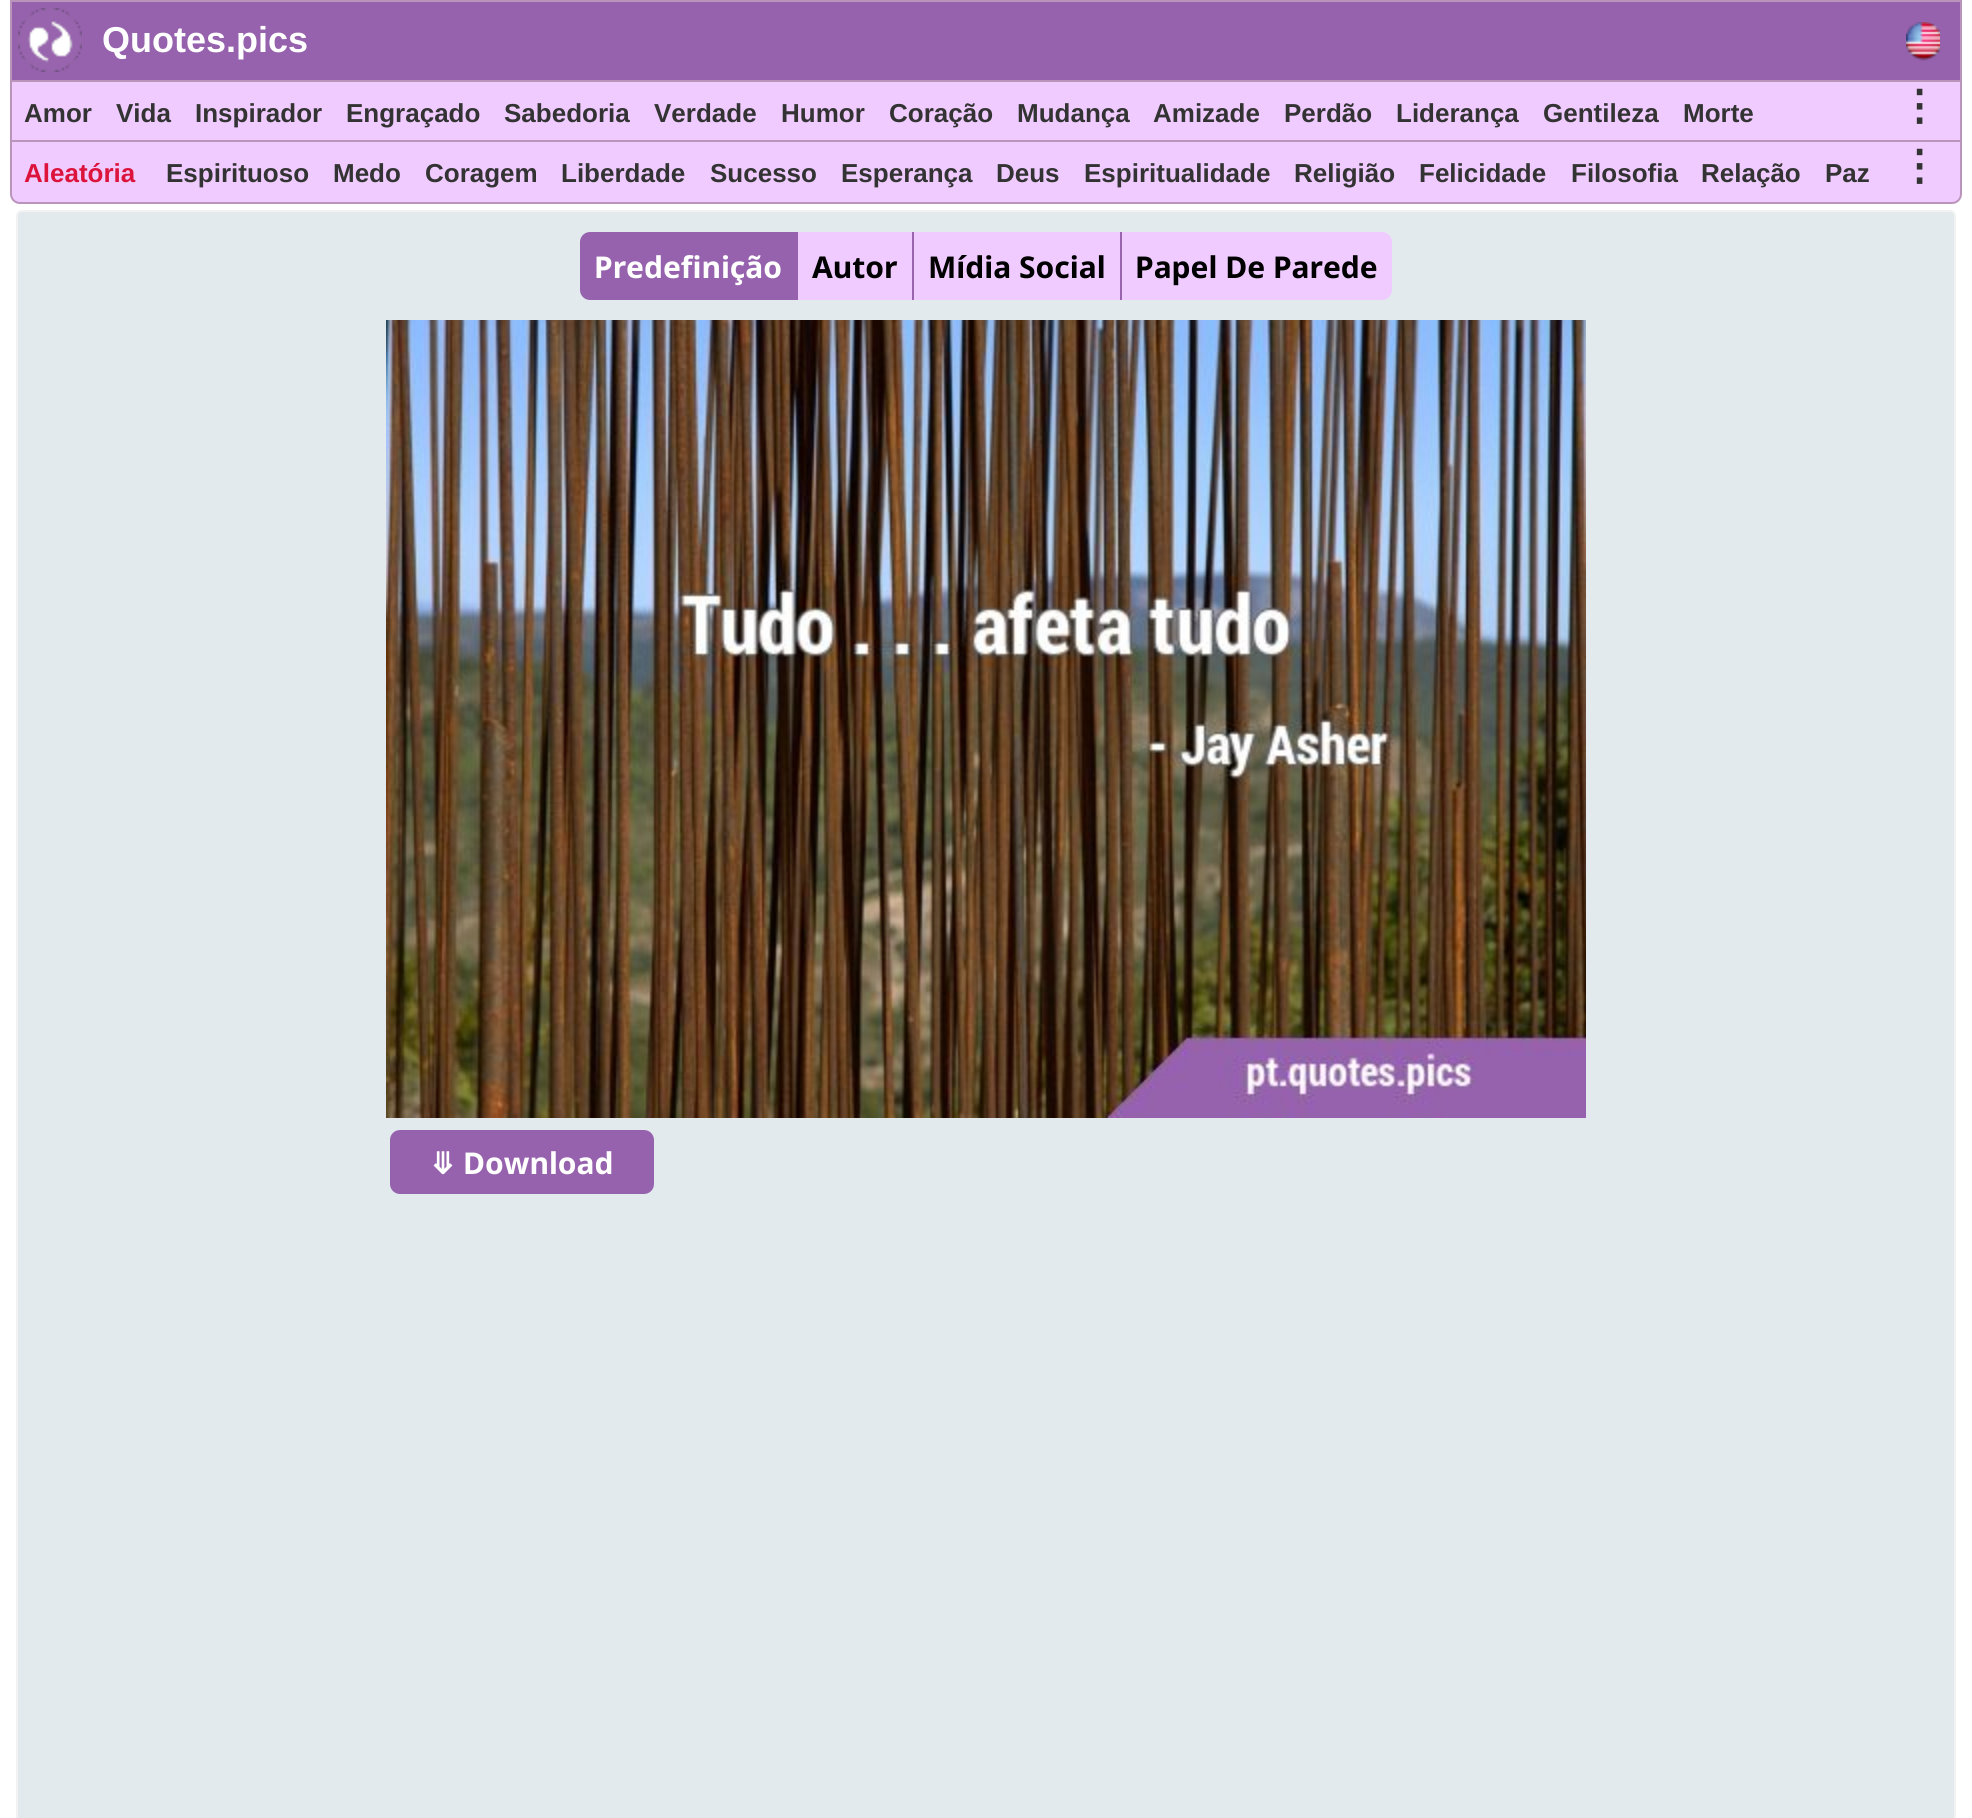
#include <cairo.h>
#include <math.h>
#include <stddef.h>

typedef struct { const char *family; double size; int italic, bold; unsigned color; } style_t;
static cairo_t *ctx;

static void ink(unsigned color) {
    cairo_set_source_rgb(ctx, (color >> 16) / 255.0, (color >> 8 & 255) / 255.0, (color & 255) / 255.0);
}

static void write(double x, double y, const char *s, const style_t *st) {
    cairo_select_font_face(ctx, st->family, st->italic ? CAIRO_FONT_SLANT_ITALIC : CAIRO_FONT_SLANT_NORMAL,
        st->bold ? CAIRO_FONT_WEIGHT_BOLD : CAIRO_FONT_WEIGHT_NORMAL);
    cairo_set_font_size(ctx, st->size);
    ink(st->color);
    cairo_move_to(ctx, x, y);
    cairo_show_text(ctx, s);
}

static void block(double x, double y, double w, double h, unsigned color) {
    ink(color);
    cairo_rectangle(ctx, x, y, w, h);
    cairo_fill(ctx);
}

static void round_path(double x, double y, double w, double h, double r) {
    cairo_new_sub_path(ctx);
    cairo_arc(ctx, x + w - r, y + h - r, r, 0, M_PI / 2);
    cairo_arc(ctx, x + r, y + h - r, r, M_PI / 2, M_PI);
    cairo_arc(ctx, x + r, y + r, r, M_PI, 1.5 * M_PI);
    cairo_arc(ctx, x + w - r, y + r, r, 1.5 * M_PI, 2 * M_PI);
    cairo_close_path(ctx);
}

static void paste(const char *path, double x, double y, double w, double h) {
    cairo_surface_t *image = cairo_image_surface_create_from_png(path);
    cairo_save(ctx);
    cairo_set_source_surface(ctx, image, x, y);
    cairo_rectangle(ctx, x, y, w, h);
    cairo_fill(ctx);
    cairo_restore(ctx);
    cairo_surface_destroy(image);
}

static const style_t s1 = {"Liberation Sans", 36, 0, 1, 0xffffff};
static const style_t s2 = {"Liberation Sans", 26, 0, 1, 0x333333};
static const style_t s3 = {"DejaVu Sans", 42, 0, 1, 0x333333};
static const style_t s4 = {"Liberation Sans", 26, 0, 1, 0xdc143c};
static const style_t s5 = {"Noto Sans", 30, 0, 1, 0xffffff};
static const style_t s6 = {"Noto Sans", 30, 0, 1, 0x000000};
static const style_t s7 = {"DejaVu Sans", 30, 0, 1, 0xffffff};

int main(void) {
    cairo_surface_t *surface = cairo_image_surface_create(CAIRO_FORMAT_RGB24, 1972, 1818);
    ctx = cairo_create(surface);
    cairo_font_options_t *options = cairo_font_options_create();
    cairo_font_options_set_hint_metrics(options, CAIRO_HINT_METRICS_OFF);
    cairo_font_options_set_hint_style(options, CAIRO_HINT_STYLE_NONE);
    cairo_set_font_options(ctx, options);
    cairo_set_miter_limit(ctx, 4);
    ink(0xffffff);
    cairo_paint(ctx);
    block(12, 2, 1948, 78, 0x9662ad);
    cairo_rectangle(ctx, 11, 1, 1950, 82);
    ink(0xbb94bb);
    cairo_stroke(ctx);
    paste("pic1.png", 18, 8, 64, 64);
    write(102, 52, "Quotes.pics", &s1);
    paste("pic2.png", 1906, 22, 34, 39);
    block(12, 82, 1948, 58, 0xf0cbff);
    cairo_rectangle(ctx, 11, 81, 1950, 62);
    ink(0xbb94bb);
    cairo_stroke(ctx);
    write(24, 122, "Amor", &s2);
    write(116, 122, "Vida", &s2);
    write(195, 122, "Inspirador", &s2);
    write(346, 122, "Engraçado", &s2);
    write(504, 122, "Sabedoria", &s2);
    write(654, 122, "Verdade", &s2);
    write(781, 122, "Humor", &s2);
    write(889, 122, "Coração", &s2);
    write(1017, 122, "Mudança", &s2);
    write(1153, 122, "Amizade", &s2);
    write(1284, 122, "Perdão", &s2);
    write(1396, 122, "Liderança", &s2);
    write(1543, 122, "Gentileza", &s2);
    write(1683, 122, "Morte", &s2);
    write(1898, 120, "⋮", &s3);
    ink(0xf0cbff);
    cairo_new_path(ctx);
    cairo_move_to(ctx, 11, 141);
    cairo_line_to(ctx, 1961, 141);
    cairo_line_to(ctx, 1961, 194);
    cairo_curve_to(ctx, 1961, 199, 1957, 203, 1952, 203);
    cairo_line_to(ctx, 20, 203);
    cairo_curve_to(ctx, 15, 203, 11, 199, 11, 194);
    cairo_close_path(ctx);
    cairo_fill_preserve(ctx);
    ink(0xbb94bb);
    cairo_stroke(ctx);
    write(24, 182, "Aleatória", &s4);
    write(166, 182, "Espirituoso", &s2);
    write(333, 182, "Medo", &s2);
    write(425, 182, "Coragem", &s2);
    write(561, 182, "Liberdade", &s2);
    write(710, 182, "Sucesso", &s2);
    write(841, 182, "Esperança", &s2);
    write(996, 182, "Deus", &s2);
    write(1084, 182, "Espiritualidade", &s2);
    write(1294, 182, "Religião", &s2);
    write(1419, 182, "Felicidade", &s2);
    write(1571, 182, "Filosofia", &s2);
    write(1701, 182, "Relação", &s2);
    write(1825, 182, "Paz", &s2);
    write(1898, 180, "⋮", &s3);
    ink(0xe2eaed);
    round_path(17, 211, 1938, 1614, 5);
    cairo_fill_preserve(ctx);
    ink(0xf2f2f2);
    cairo_stroke(ctx);
    ink(0x9662ad);
    cairo_new_path(ctx);
    cairo_move_to(ctx, 590, 232);
    cairo_line_to(ctx, 798, 232);
    cairo_line_to(ctx, 798, 300);
    cairo_line_to(ctx, 590, 300);
    cairo_curve_to(ctx, 584.5, 300, 580, 295.5, 580, 290);
    cairo_line_to(ctx, 580, 242);
    cairo_curve_to(ctx, 580, 236.5, 584.5, 232, 590, 232);
    cairo_close_path(ctx);
    cairo_fill(ctx);
    write(594, 278, "Predefinição", &s5);
    block(798, 232, 114, 68, 0xf0cbff);
    block(912, 232, 2, 68, 0x9864ad);
    write(812, 278, "Autor", &s6);
    block(914, 232, 206, 68, 0xf0cbff);
    block(1120, 232, 2, 68, 0x9864ad);
    write(928, 278, "Mídia Social", &s6);
    ink(0xf0cbff);
    cairo_new_path(ctx);
    cairo_move_to(ctx, 1122, 232);
    cairo_line_to(ctx, 1382, 232);
    cairo_curve_to(ctx, 1387.5, 232, 1392, 236.5, 1392, 242);
    cairo_line_to(ctx, 1392, 290);
    cairo_curve_to(ctx, 1392, 295.5, 1387.5, 300, 1382, 300);
    cairo_line_to(ctx, 1122, 300);
    cairo_close_path(ctx);
    cairo_fill(ctx);
    write(1135, 278, "Papel De Parede", &s6);
    paste("pic3.png", 386, 320, 1200, 798);
    ink(0x9662ad);
    round_path(390, 1130, 264, 64, 10);
    cairo_fill(ctx);
    write(430, 1174, "⤋", &s7);
    write(463, 1174, "Download", &s5);
    cairo_surface_write_to_png(surface, "screenshot.png");
    cairo_font_options_destroy(options);
    cairo_destroy(ctx);
    cairo_surface_destroy(surface);
    return 0;
}
